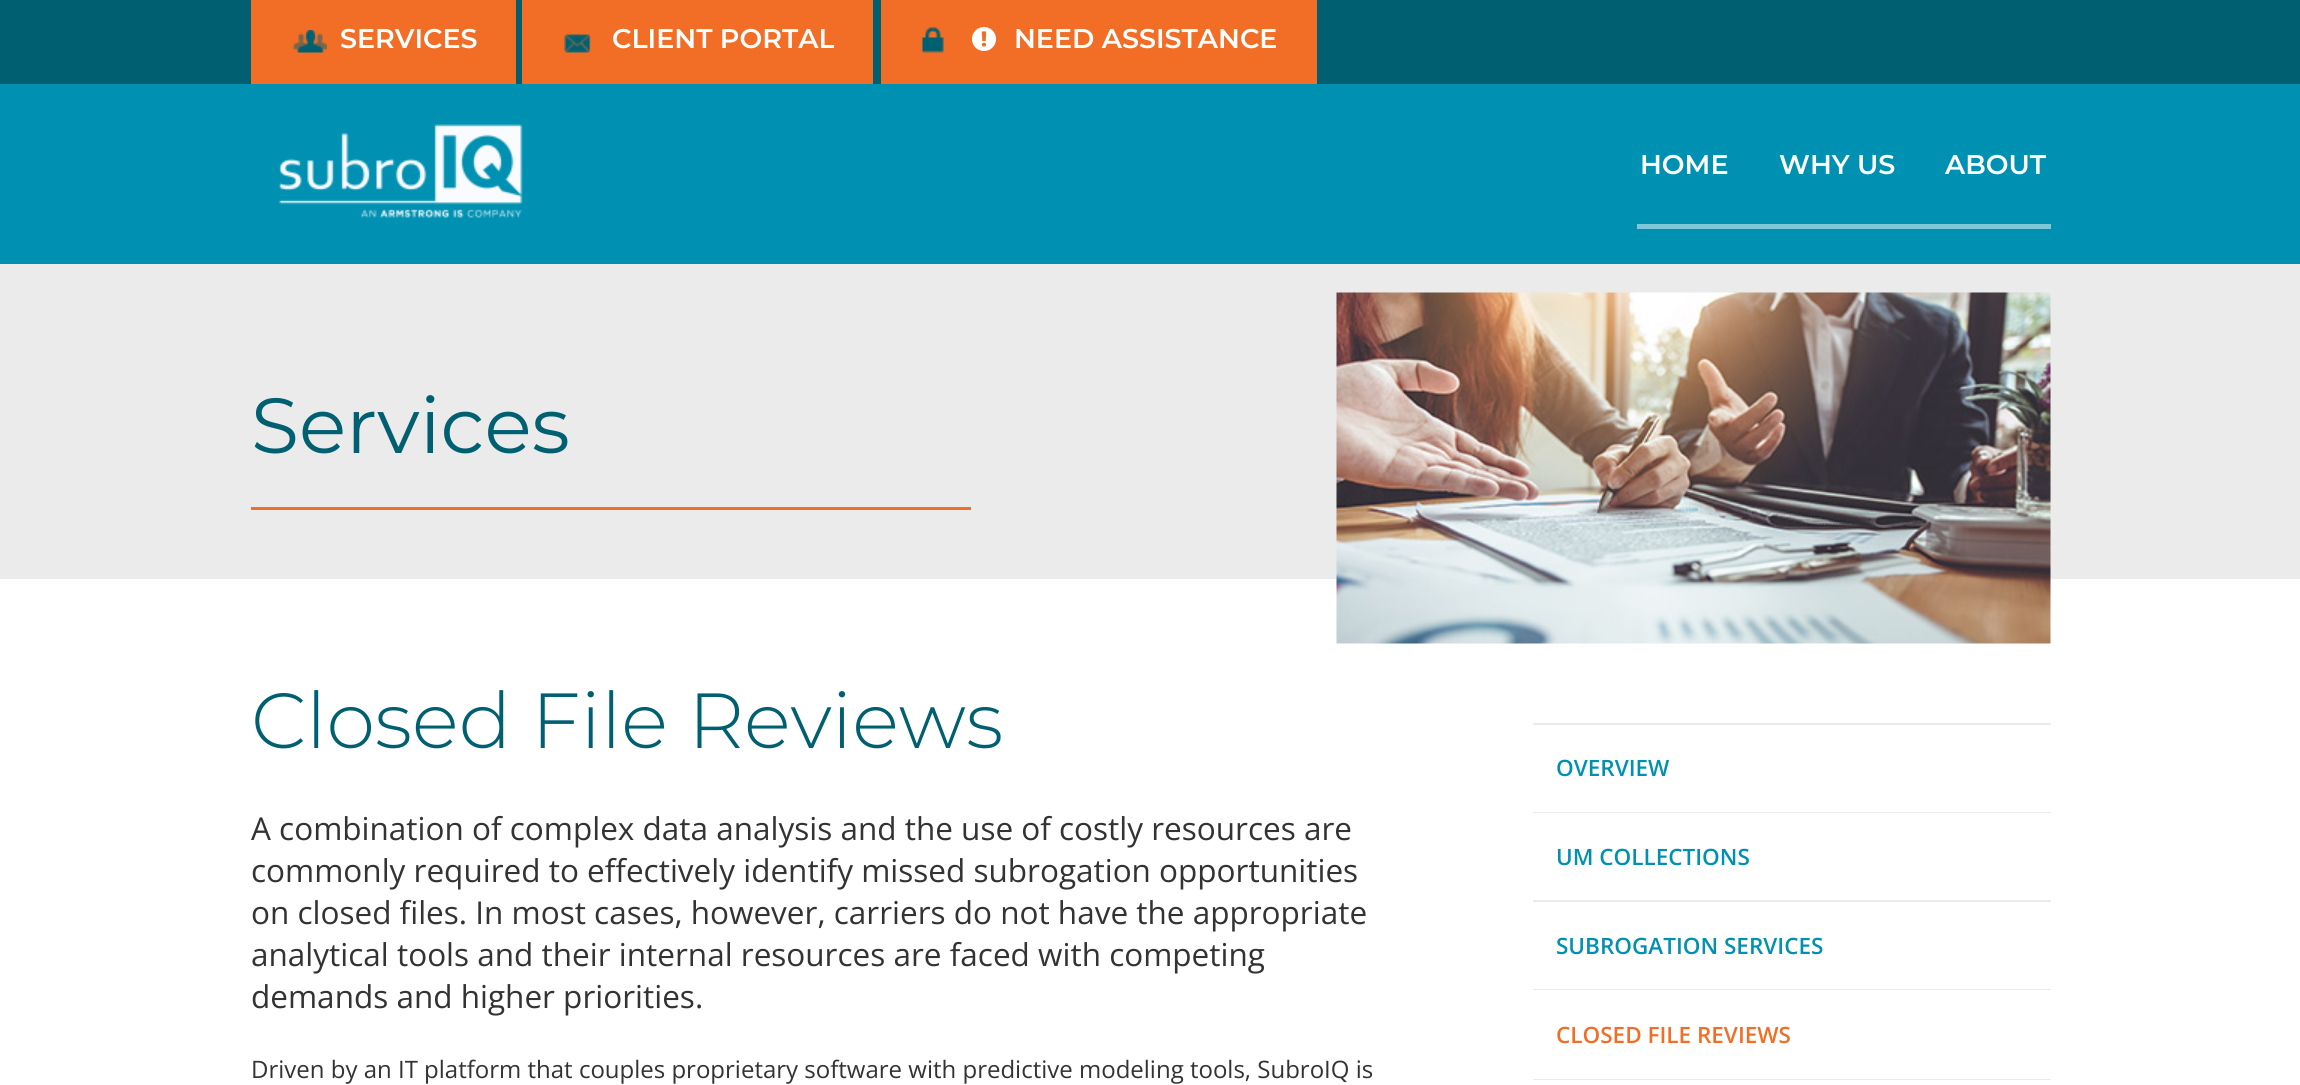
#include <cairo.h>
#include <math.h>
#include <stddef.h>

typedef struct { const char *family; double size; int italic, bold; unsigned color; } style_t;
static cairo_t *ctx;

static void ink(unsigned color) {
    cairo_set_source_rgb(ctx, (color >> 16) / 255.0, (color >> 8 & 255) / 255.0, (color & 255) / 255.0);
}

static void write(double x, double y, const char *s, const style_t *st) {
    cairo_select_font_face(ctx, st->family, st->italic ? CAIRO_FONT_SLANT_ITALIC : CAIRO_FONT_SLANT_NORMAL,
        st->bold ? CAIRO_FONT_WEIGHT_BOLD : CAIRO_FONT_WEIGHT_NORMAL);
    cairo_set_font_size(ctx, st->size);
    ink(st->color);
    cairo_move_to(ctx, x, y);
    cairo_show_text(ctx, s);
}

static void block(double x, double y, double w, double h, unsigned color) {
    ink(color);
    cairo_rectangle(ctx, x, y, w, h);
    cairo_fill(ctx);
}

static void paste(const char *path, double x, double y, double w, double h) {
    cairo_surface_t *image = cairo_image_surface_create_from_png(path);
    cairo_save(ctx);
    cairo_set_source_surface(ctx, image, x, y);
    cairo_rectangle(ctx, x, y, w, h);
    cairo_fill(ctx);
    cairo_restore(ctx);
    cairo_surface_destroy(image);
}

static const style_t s1 = {"Montserrat SemiBold", 27, 0, 0, 0xffffff};
static const style_t s2 = {"Montserrat", 78, 0, 0, 0x006072};
static const style_t s3 = {"Montserrat Light", 78, 0, 0, 0x006072};
static const style_t s4 = {"Open Sans", 31.5, 0, 0, 0x333333};
static const style_t s5 = {"Open Sans", 24, 0, 0, 0x333333};
static const style_t s6 = {"Open Sans SemiBold", 22.5, 0, 0, 0x0091b2};
static const style_t s7 = {"Open Sans SemiBold", 22.5, 0, 0, 0xf26e26};

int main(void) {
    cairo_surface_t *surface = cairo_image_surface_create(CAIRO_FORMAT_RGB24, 2300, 1085);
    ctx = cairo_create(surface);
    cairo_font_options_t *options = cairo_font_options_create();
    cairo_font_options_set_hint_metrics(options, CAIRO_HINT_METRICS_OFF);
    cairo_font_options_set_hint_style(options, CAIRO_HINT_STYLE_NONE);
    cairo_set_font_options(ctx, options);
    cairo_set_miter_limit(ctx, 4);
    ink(0xffffff);
    cairo_paint(ctx);
    block(0, 84, 2300, 180, 0x0091b2);
    block(0, 0, 2300, 84, 0x006072);
    block(251, 0, 265, 84, 0xf26e26);
    paste("pic1.png", 292, 30, 35, 23);
    write(340, 48, "SERVICES", &s1);
    block(522, 0, 351, 84, 0xf26e26);
    paste("pic2.png", 564, 34, 27, 19);
    write(612, 48, "CLIENT PORTAL", &s1);
    block(881, 0, 436, 84, 0xf26e26);
    paste("pic3.png", 922, 27, 22, 26);
    paste("pic4.png", 972, 27, 24, 24);
    write(1014, 48, "NEED ASSISTANCE", &s1);
    paste("pic5.png", 278, 124, 245, 94);
    block(1637, 224, 414, 5, 0x80c8d9);
    write(1640, 174, "HOME", &s1);
    write(1779, 174, "WHY US", &s1);
    write(1945, 174, "ABOUT", &s1);
    block(0, 264, 2300, 315, 0xebebeb);
    block(251, 507, 720, 3, 0xf26e26);
    write(251, 453, "Services", &s2);
    paste("pic6.png", 1336, 292, 715, 352);
    write(251, 748, "Closed File Reviews", &s3);
    write(251, 840, "A combination of complex data analysis and the use of costly resources are", &s4);
    write(251, 882, "commonly required to effectively identify missed subrogation opportunities", &s4);
    write(251, 924, "on closed files. In most cases, however, carriers do not have the appropriate", &s4);
    write(251, 966, "analytical tools and their internal resources are faced with competing", &s4);
    write(251, 1008, "demands and higher priorities.", &s4);
    write(251, 1078, "Driven by an IT platform that couples proprietary software with predictive modeling tools, SubroIQ is", &s5);
    block(1533, 723, 518, 2, 0xebebeb);
    block(1533, 812, 518, 1, 0xebebeb);
    write(1556, 776, "OVERVIEW", &s6);
    block(1533, 900, 518, 2, 0xebebeb);
    write(1556, 865, "UM COLLECTIONS", &s6);
    block(1533, 989, 518, 1, 0xebebeb);
    write(1556, 954, "SUBROGATION SERVICES", &s6);
    block(1533, 1079, 518, 1, 0xebebeb);
    write(1556, 1043, "CLOSED FILE REVIEWS", &s7);
    cairo_surface_write_to_png(surface, "screenshot.png");
    cairo_font_options_destroy(options);
    cairo_destroy(ctx);
    cairo_surface_destroy(surface);
    return 0;
}
